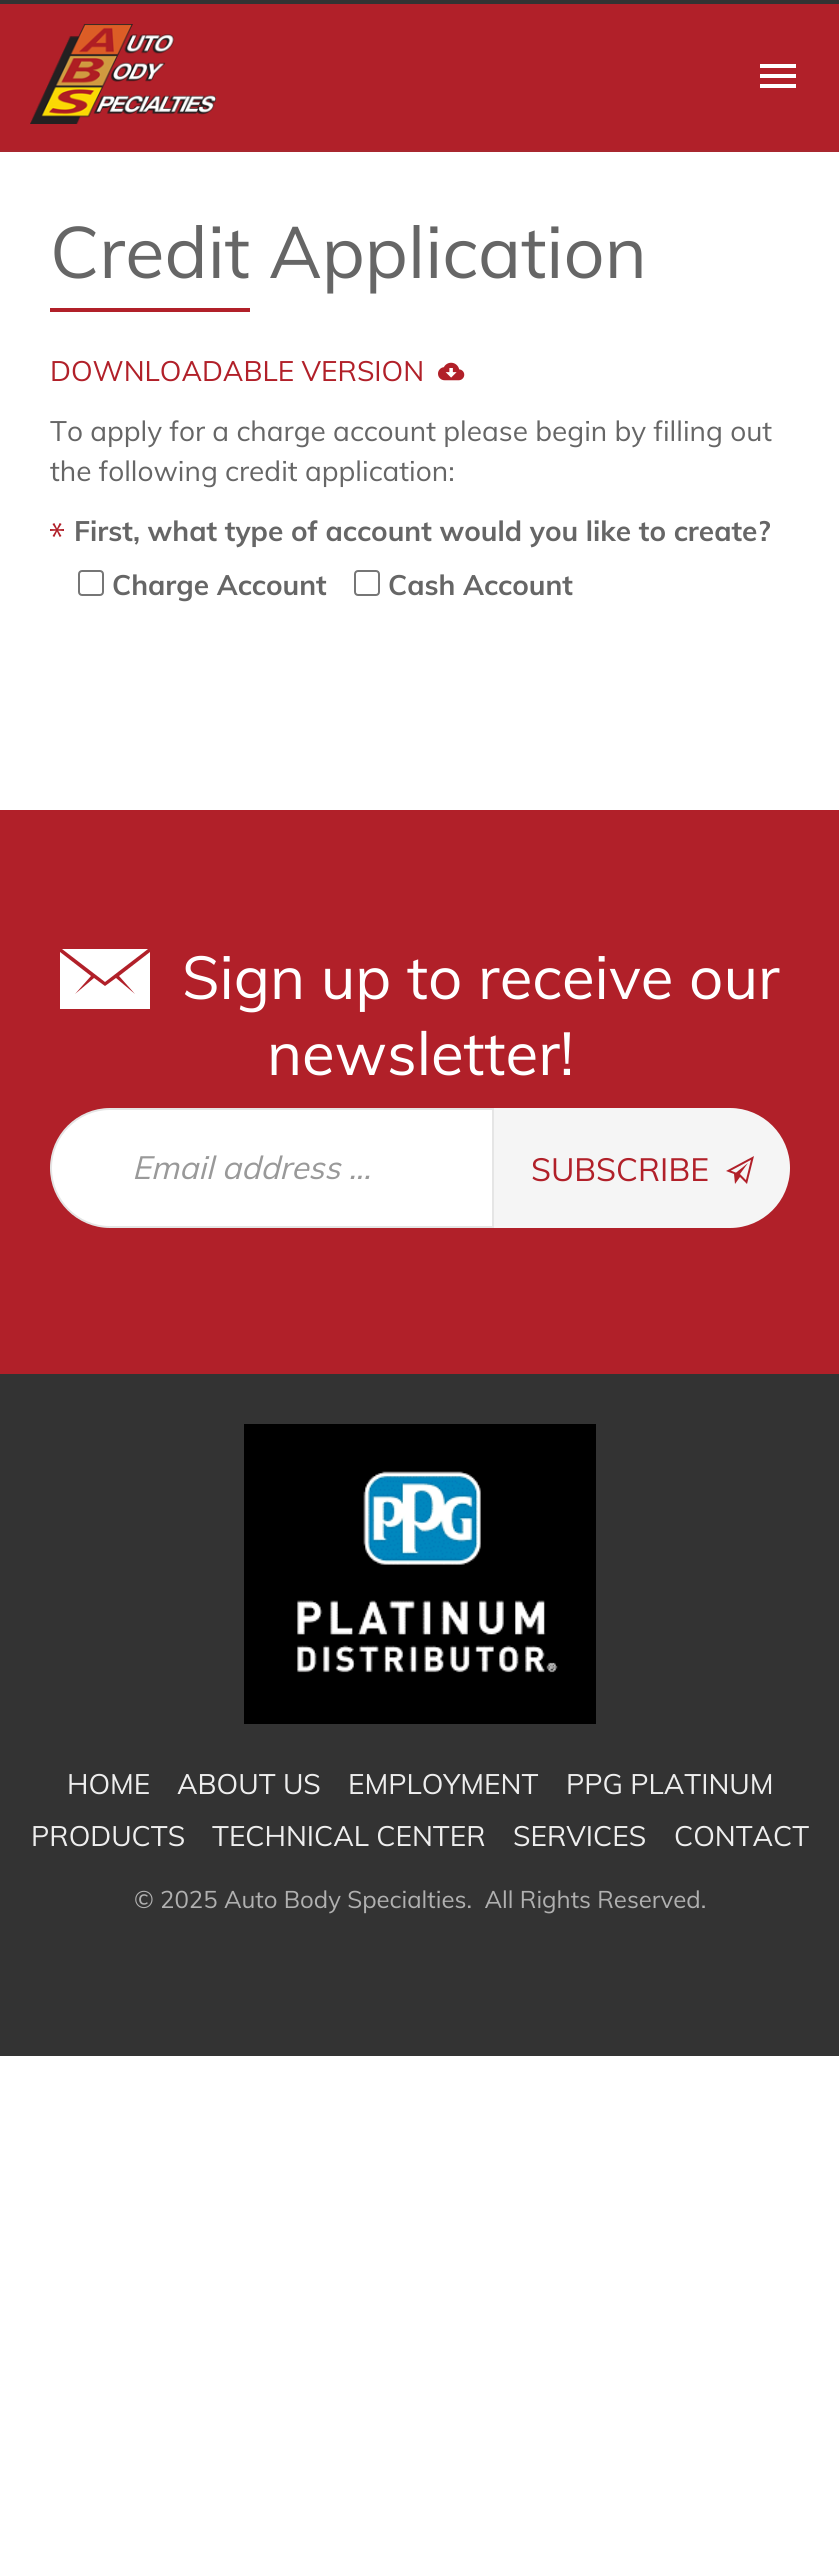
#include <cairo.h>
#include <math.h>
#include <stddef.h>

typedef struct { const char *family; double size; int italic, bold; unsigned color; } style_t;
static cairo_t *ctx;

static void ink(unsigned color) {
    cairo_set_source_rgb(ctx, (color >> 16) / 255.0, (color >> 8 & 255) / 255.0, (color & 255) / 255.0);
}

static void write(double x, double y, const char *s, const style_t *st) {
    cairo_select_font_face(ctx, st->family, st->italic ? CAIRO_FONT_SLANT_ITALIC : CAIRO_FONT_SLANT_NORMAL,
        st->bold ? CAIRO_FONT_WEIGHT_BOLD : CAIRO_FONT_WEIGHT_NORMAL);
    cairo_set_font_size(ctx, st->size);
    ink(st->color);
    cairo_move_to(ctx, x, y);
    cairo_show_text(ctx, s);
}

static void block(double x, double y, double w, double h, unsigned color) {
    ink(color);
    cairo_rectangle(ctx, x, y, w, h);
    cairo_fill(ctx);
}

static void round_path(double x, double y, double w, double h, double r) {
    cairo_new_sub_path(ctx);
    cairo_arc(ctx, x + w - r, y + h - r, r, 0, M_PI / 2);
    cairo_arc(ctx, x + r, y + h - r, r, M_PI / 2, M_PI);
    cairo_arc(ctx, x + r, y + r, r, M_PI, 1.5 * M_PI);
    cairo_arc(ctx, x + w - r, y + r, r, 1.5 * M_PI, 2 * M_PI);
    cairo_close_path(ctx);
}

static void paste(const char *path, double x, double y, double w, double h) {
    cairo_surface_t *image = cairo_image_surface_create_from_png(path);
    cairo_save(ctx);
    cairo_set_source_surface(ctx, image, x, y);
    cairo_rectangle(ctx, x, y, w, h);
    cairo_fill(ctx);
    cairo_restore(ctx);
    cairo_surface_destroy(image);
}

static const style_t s1 = {"Muli", 72, 0, 0, 0x666666};
static const style_t s2 = {"Muli", 28, 0, 0, 0xb12029};
static const style_t s3 = {"Muli", 28, 0, 0, 0x666666};
static const style_t s4 = {"Muli", 28, 0, 1, 0x666666};
static const style_t s5 = {"Muli", 60, 0, 0, 0xffffff};
static const style_t s6 = {"Muli", 32, 1, 0, 0x999999};
static const style_t s7 = {"Muli", 32, 0, 0, 0xb12029};
static const style_t s8 = {"Muli", 28, 0, 0, 0xeeeeee};
static const style_t s9 = {"Muli", 24, 0, 0, 0xb0b0b0};

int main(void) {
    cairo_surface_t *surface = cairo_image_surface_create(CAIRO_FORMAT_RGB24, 839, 2559);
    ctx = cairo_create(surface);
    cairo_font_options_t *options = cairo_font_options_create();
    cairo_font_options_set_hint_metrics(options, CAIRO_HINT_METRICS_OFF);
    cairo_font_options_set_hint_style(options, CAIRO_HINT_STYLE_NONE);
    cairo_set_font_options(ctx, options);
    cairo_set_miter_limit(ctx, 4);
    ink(0xffffff);
    cairo_paint(ctx);
    block(0, 0, 839, 4, 0x333333);
    block(0, 4, 839, 146, 0xb12029);
    block(0, 150, 839, 2, 0xa9272f);
    paste("pic1.png", 30, 24, 186, 100);
    ink(0xffffff);
    cairo_new_path(ctx);
    cairo_move_to(ctx, 760, 88);
    cairo_line_to(ctx, 760, 84);
    cairo_line_to(ctx, 796, 84);
    cairo_line_to(ctx, 796, 88);
    cairo_close_path(ctx);
    cairo_move_to(ctx, 760, 78);
    cairo_line_to(ctx, 760, 74);
    cairo_line_to(ctx, 796, 74);
    cairo_line_to(ctx, 796, 78);
    cairo_close_path(ctx);
    cairo_move_to(ctx, 760, 64);
    cairo_line_to(ctx, 796, 64);
    cairo_line_to(ctx, 796, 68);
    cairo_line_to(ctx, 760, 68);
    cairo_close_path(ctx);
    cairo_fill(ctx);
    write(50, 278, "Credit Application", &s1);
    block(50, 308, 200, 4, 0xb12029);
    write(50, 381, "DOWNLOADABLE VERSION", &s2);
    paste("pic2.png", 438, 362, 27, 19);
    write(50, 441, "To apply for a charge account please begin by filling out", &s3);
    write(50, 481, "the following credit application:", &s3);
    paste("pic3.png", 50, 523, 14, 14);
    write(74, 541, "First, what type of account would you like to create?", &s4);
    round_path(79, 571, 24, 24, 3);
    ink(0x767676);
    cairo_stroke(ctx);
    write(112, 595, "Charge Account", &s4);
    round_path(355, 571, 24, 24, 3);
    ink(0x767676);
    cairo_stroke(ctx);
    write(388, 595, "Cash Account", &s4);
    block(0, 810, 839, 564, 0xb12029);
    ink(0xffffff);
    cairo_new_path(ctx);
    cairo_move_to(ctx, 150, 1009);
    cairo_line_to(ctx, 60, 1009);
    cairo_line_to(ctx, 60, 952);
    cairo_line_to(ctx, 91, 976);
    cairo_line_to(ctx, 75, 994);
    cairo_line_to(ctx, 94, 978);
    cairo_line_to(ctx, 105, 986);
    cairo_line_to(ctx, 116, 978);
    cairo_line_to(ctx, 135, 994);
    cairo_line_to(ctx, 119, 976);
    cairo_line_to(ctx, 150, 952);
    cairo_close_path(ctx);
    cairo_move_to(ctx, 148, 949);
    cairo_line_to(ctx, 105, 982);
    cairo_line_to(ctx, 62, 949);
    cairo_close_path(ctx);
    cairo_fill(ctx);
    write(182, 999, "Sign up to receive our", &s5);
    write(267, 1075, "newsletter!", &s5);
    cairo_new_path(ctx);
    cairo_move_to(ctx, 110, 1109);
    cairo_line_to(ctx, 493, 1109);
    cairo_line_to(ctx, 493, 1227);
    cairo_line_to(ctx, 110, 1227);
    cairo_curve_to(ctx, 77.5, 1227, 51, 1200.5, 51, 1168);
    cairo_curve_to(ctx, 51, 1135.5, 77.5, 1109, 110, 1109);
    cairo_close_path(ctx);
    cairo_fill_preserve(ctx);
    ink(0xe5e5e5);
    cairo_stroke(ctx);
    write(132, 1179, "Email address ...", &s6);
    ink(0xf5f5f5);
    cairo_new_path(ctx);
    cairo_move_to(ctx, 495, 1109);
    cairo_line_to(ctx, 730, 1109);
    cairo_curve_to(ctx, 762.5, 1109, 789, 1135.5, 789, 1168);
    cairo_curve_to(ctx, 789, 1200.5, 762.5, 1227, 730, 1227);
    cairo_line_to(ctx, 495, 1227);
    cairo_close_path(ctx);
    cairo_fill_preserve(ctx);
    cairo_stroke(ctx);
    write(531, 1181, "SUBSCRIBE", &s7);
    paste("pic4.png", 726, 1156, 28, 28);
    block(0, 1374, 839, 682, 0x333333);
    paste("pic5.png", 244, 1424, 352, 300);
    write(67, 1794, "HOME", &s8);
    write(177, 1794, "ABOUT US", &s8);
    write(348, 1794, "EMPLOYMENT", &s8);
    write(566, 1794, "PPG PLATINUM", &s8);
    write(31, 1846, "PRODUCTS", &s8);
    write(212, 1846, "TECHNICAL CENTER", &s8);
    write(513, 1846, "SERVICES", &s8);
    write(674, 1846, "CONTACT", &s8);
    write(134, 1908, "© 2025 Auto Body Specialties.  All Rights Reserved.", &s9);
    cairo_surface_write_to_png(surface, "screenshot.png");
    cairo_font_options_destroy(options);
    cairo_destroy(ctx);
    cairo_surface_destroy(surface);
    return 0;
}
